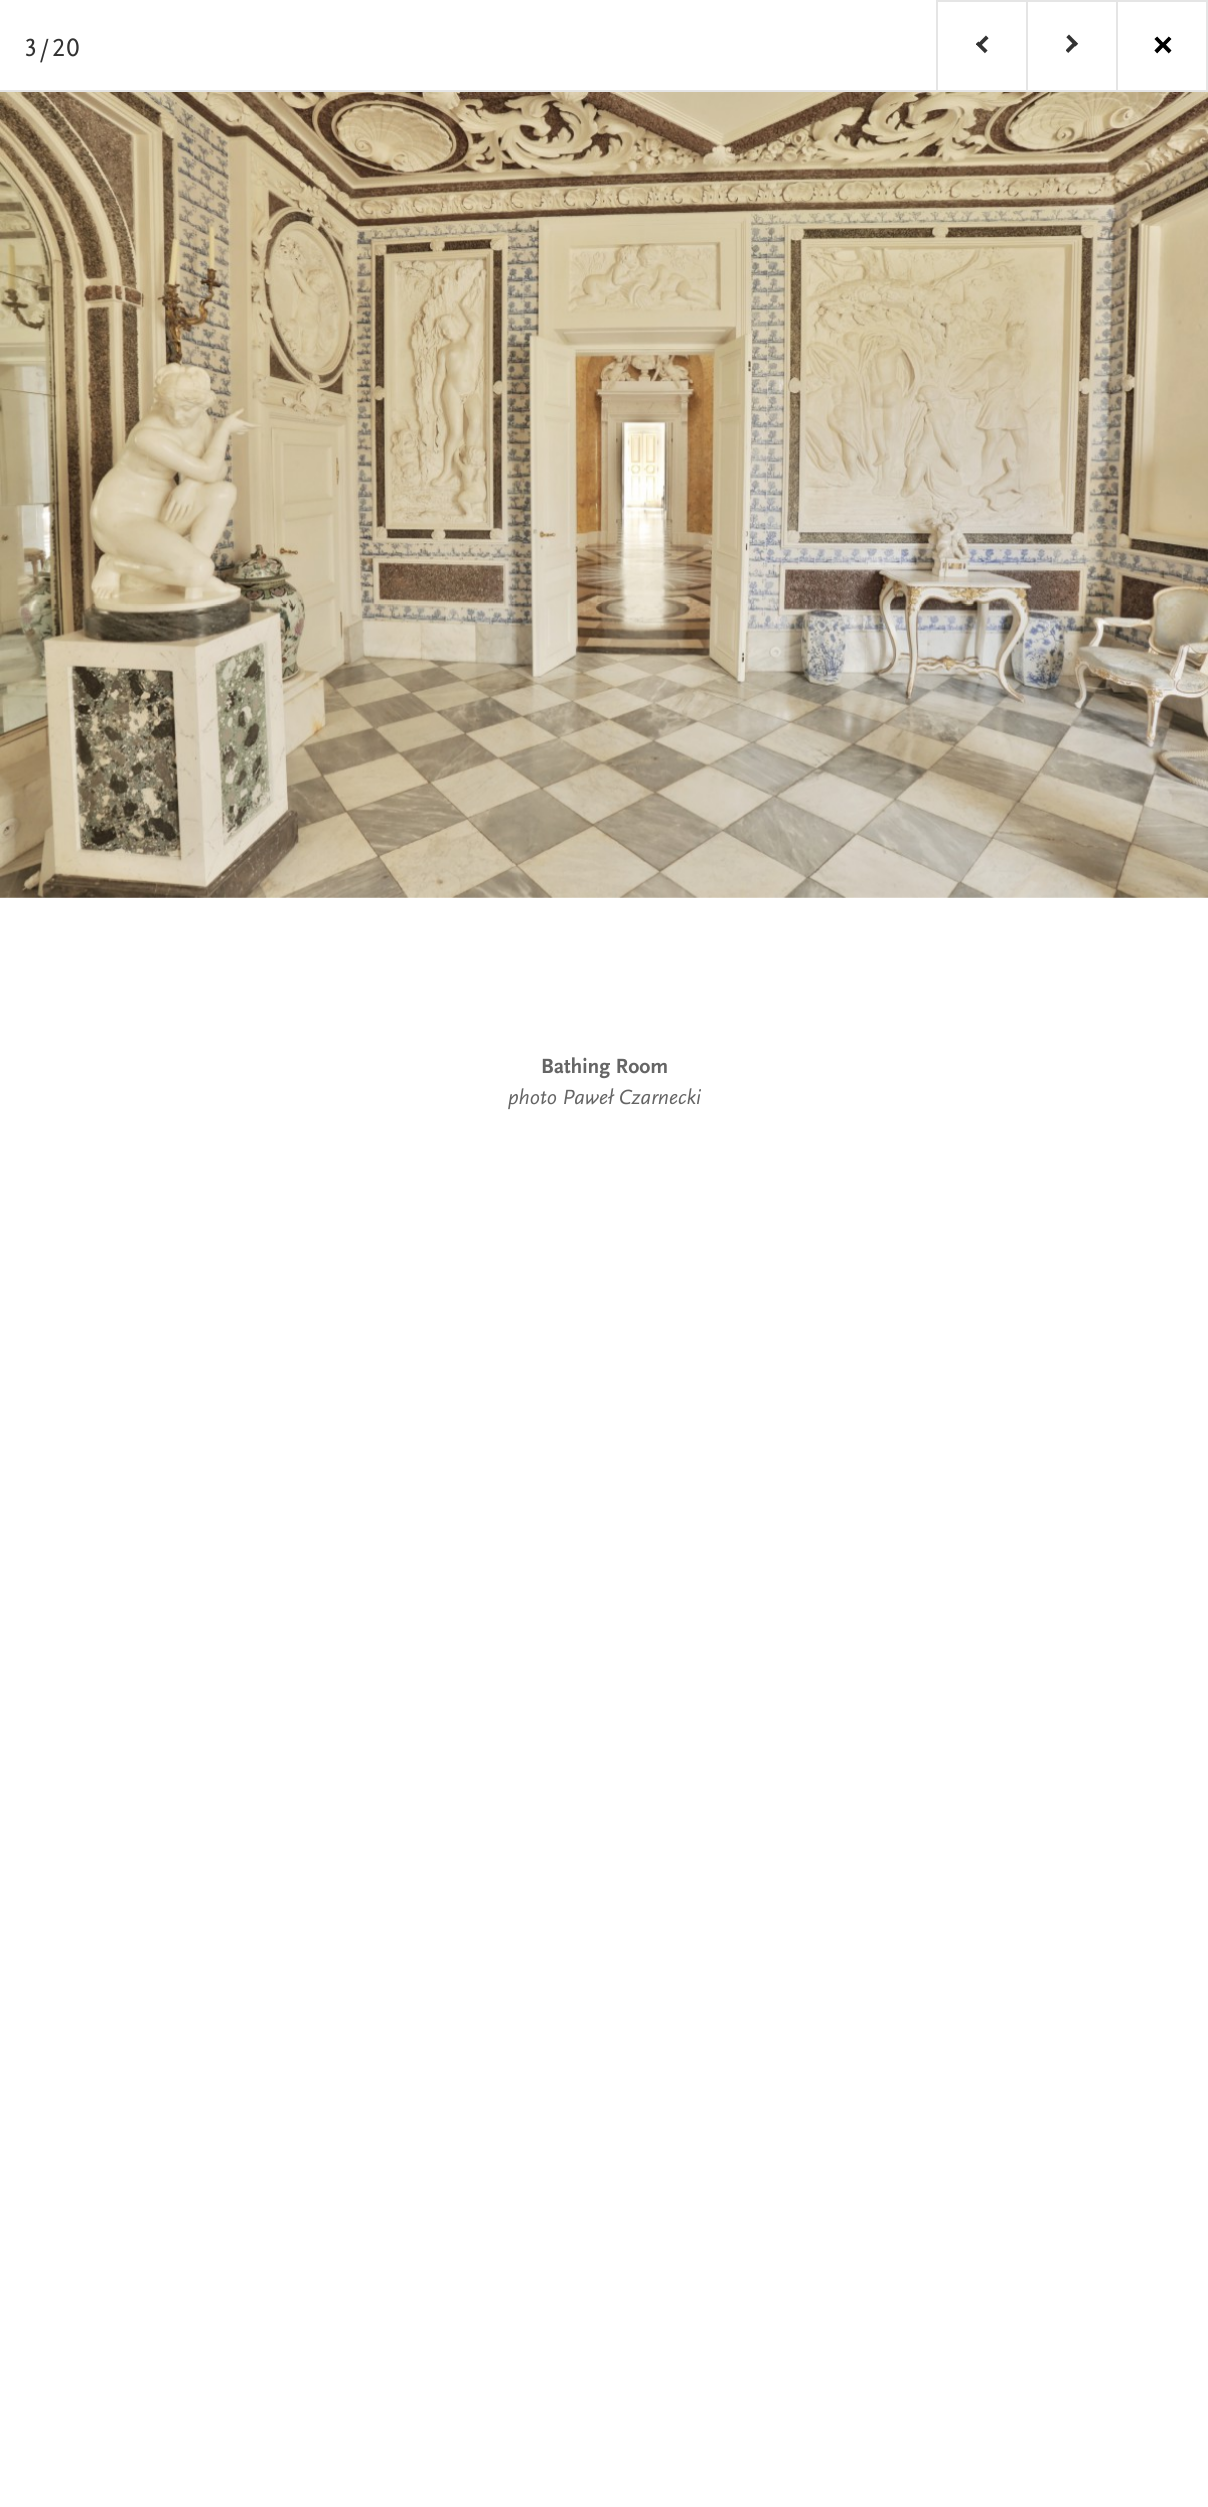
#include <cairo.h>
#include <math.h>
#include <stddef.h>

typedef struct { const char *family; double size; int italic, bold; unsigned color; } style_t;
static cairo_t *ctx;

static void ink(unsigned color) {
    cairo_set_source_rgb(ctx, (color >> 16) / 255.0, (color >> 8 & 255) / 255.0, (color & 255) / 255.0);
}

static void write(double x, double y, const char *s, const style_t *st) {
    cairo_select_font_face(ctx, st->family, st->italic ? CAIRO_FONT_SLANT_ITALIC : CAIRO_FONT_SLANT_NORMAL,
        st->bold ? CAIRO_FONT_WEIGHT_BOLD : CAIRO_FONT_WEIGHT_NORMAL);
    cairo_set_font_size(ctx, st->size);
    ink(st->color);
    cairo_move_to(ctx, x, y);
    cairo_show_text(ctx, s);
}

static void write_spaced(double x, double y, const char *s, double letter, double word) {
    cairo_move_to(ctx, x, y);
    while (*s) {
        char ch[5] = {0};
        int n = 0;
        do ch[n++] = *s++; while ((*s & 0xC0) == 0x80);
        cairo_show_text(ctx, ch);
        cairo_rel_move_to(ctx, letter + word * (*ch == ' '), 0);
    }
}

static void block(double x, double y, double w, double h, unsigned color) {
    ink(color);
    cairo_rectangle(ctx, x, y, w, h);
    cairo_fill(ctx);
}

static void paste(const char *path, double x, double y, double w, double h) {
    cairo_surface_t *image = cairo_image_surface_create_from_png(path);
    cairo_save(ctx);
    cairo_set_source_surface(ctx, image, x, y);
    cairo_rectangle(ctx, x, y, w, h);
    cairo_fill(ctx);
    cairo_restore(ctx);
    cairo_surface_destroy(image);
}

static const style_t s1 = {"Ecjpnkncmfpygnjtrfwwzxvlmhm", 21.5, 0, 1, 0x656565};
static const style_t s2 = {"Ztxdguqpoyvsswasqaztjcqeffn", 21.5, 1, 0, 0x656565};

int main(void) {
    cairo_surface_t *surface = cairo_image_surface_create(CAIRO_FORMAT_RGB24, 1208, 2507);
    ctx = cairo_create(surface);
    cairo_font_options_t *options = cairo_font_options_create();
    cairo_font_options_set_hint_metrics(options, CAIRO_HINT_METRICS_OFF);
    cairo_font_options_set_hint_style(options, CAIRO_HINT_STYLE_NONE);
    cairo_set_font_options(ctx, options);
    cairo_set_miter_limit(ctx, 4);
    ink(0xffffff);
    cairo_paint(ctx);
    block(0, 90, 936, 2, 0xe5e5e5);
    cairo_rectangle(ctx, 937, 1, 90, 90);
    cairo_stroke(ctx);
    paste("pic1.png", 976, 35, 13, 19);
    cairo_rectangle(ctx, 1027, 1, 90, 90);
    cairo_stroke(ctx);
    paste("pic2.png", 1066, 34, 13, 19);
    cairo_rectangle(ctx, 1117, 1, 90, 90);
    cairo_stroke(ctx);
    paste("pic3.png", 1154, 36, 18, 18);
    cairo_select_font_face(ctx, "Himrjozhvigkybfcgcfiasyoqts", CAIRO_FONT_SLANT_NORMAL, CAIRO_FONT_WEIGHT_NORMAL);
    cairo_set_font_size(ctx, 26);
    ink(0x333333);
    write_spaced(24, 56, "3/20", 2, 0);
    paste("pic4.png", 0, 92, 1208, 806);
    write(541, 1073, "Bathing Room", &s1);
    write(508, 1104, "photo Paweł Czarnecki", &s2);
    cairo_surface_write_to_png(surface, "screenshot.png");
    cairo_font_options_destroy(options);
    cairo_destroy(ctx);
    cairo_surface_destroy(surface);
    return 0;
}
